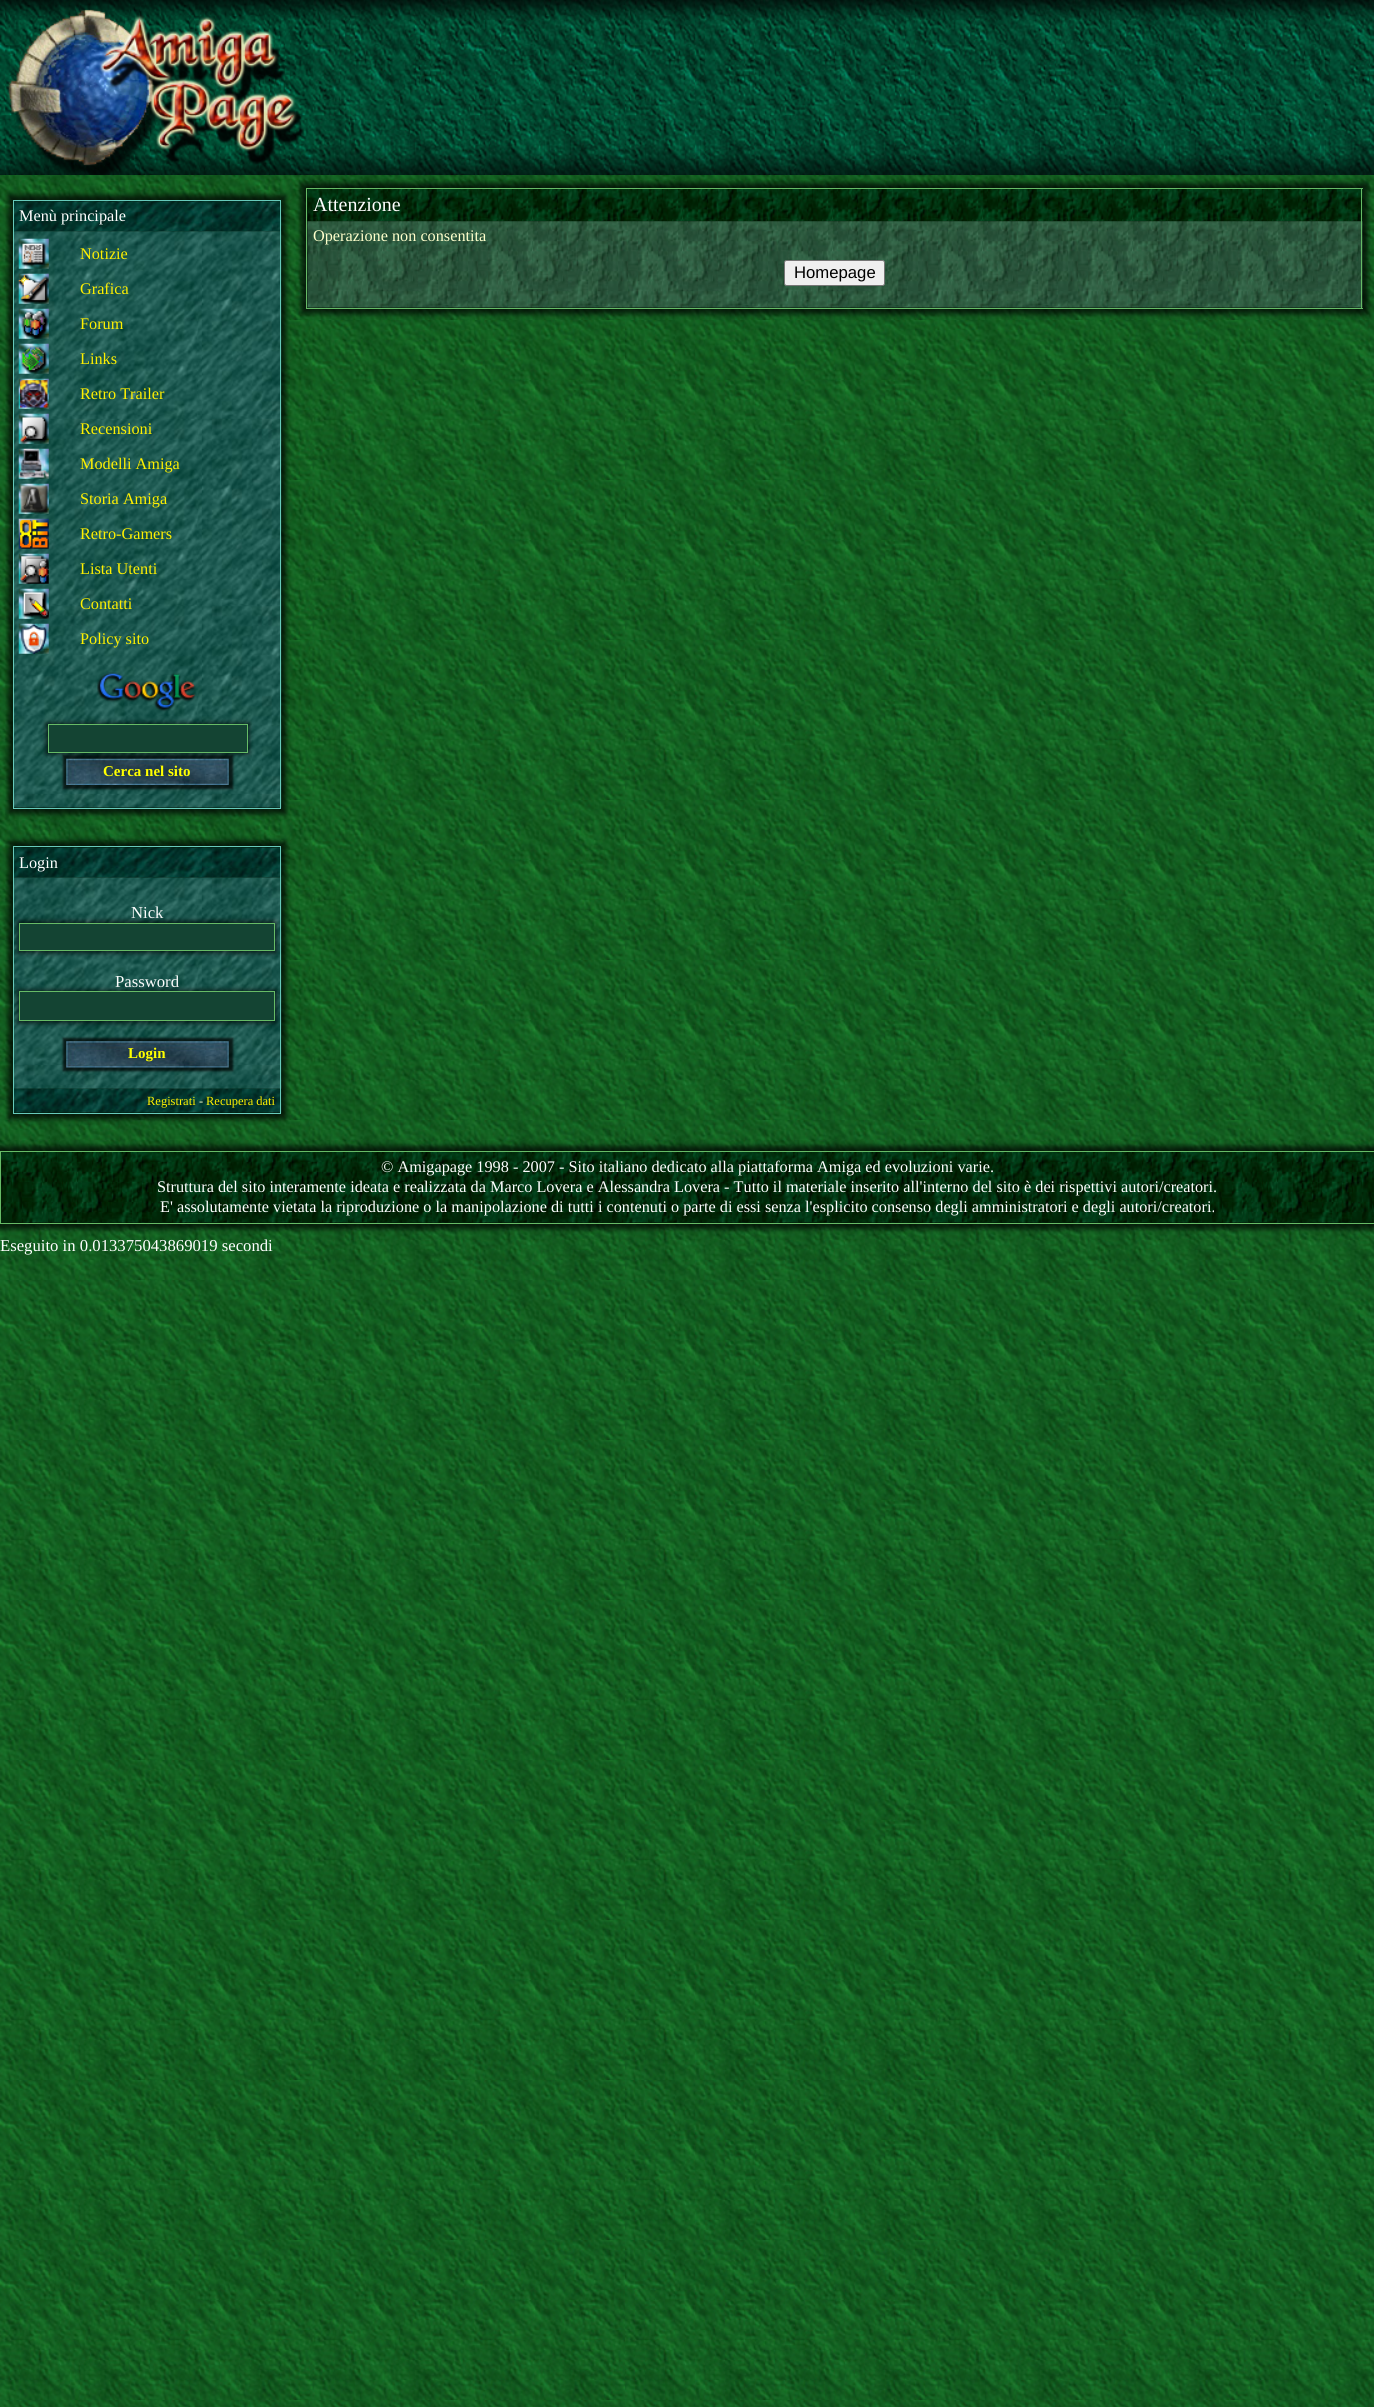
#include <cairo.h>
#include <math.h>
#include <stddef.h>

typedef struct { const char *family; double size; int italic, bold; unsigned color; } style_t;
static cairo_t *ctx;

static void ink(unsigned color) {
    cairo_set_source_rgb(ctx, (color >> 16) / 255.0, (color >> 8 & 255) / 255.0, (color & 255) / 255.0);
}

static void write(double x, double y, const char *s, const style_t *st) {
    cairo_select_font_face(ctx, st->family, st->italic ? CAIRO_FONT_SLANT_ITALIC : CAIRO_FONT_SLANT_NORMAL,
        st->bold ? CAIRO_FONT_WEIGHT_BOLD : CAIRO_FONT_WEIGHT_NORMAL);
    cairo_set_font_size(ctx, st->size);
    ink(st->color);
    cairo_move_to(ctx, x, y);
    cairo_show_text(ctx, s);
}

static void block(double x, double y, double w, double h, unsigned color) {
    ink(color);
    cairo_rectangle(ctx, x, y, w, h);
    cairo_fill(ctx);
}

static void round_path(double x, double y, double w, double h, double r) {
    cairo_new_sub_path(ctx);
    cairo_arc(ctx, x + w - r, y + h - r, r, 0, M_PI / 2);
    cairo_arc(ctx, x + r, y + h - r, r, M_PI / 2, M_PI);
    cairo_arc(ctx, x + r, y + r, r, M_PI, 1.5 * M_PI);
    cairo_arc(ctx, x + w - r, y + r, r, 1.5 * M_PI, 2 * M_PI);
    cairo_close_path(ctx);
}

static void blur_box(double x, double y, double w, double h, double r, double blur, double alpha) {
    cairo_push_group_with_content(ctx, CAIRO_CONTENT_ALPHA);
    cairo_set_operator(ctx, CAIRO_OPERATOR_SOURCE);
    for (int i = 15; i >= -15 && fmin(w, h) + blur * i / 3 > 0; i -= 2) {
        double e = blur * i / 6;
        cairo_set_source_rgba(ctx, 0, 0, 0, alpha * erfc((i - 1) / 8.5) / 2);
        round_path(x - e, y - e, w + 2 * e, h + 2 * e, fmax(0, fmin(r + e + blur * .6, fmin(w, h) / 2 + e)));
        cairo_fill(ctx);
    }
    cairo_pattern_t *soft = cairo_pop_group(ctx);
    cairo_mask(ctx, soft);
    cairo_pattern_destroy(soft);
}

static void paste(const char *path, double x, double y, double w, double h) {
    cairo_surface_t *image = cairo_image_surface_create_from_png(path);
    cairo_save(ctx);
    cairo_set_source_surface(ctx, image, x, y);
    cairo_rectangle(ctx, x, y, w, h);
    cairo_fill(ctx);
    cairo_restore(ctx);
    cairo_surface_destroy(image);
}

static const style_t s1 = {"Liberation Serif", 16.25, 0, 0, 0xffffff};
static const style_t s2 = {"Liberation Serif", 16.25, 0, 0, 0xfff000};
static const style_t s3 = {"Liberation Serif", 15, 0, 1, 0xffff00};
static const style_t s4 = {"Liberation Serif", 16.7, 0, 0, 0xffffff};
static const style_t s5 = {"Liberation Serif", 12.5, 0, 0, 0xfff000};
static const style_t s6 = {"Liberation Serif", 12.5, 0, 0, 0xffffcc};
static const style_t s7 = {"Liberation Serif", 20, 0, 0, 0xffffff};
static const style_t s8 = {"Liberation Serif", 16.25, 0, 0, 0xffffcc};
static const style_t s9 = {"Liberation Sans", 16.7, 0, 0, 0x000000};

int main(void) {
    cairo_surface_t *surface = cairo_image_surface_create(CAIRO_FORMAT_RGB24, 1374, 2407);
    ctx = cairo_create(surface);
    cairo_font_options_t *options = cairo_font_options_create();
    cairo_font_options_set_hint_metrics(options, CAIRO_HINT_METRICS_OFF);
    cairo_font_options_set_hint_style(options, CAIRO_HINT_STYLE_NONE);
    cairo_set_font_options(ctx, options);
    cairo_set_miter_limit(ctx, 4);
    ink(0xffffff);
    cairo_paint(ctx);
    paste("pic1.png", 0, 175, 1374, 2232);
    paste("pic2.png", 312, 0, 1062, 175);
    ink(0x000000);
    blur_box(301, 183, 1067, 131, 0, 2.5, 0.7);
    paste("pic3.png", 0, 0, 313, 175);
    blur_box(8, 195, 278, 619, 0, 2.5, 0.7);
    block(13, 200, 268, 1, 0x66cabb);
    paste("pic4.png", 14, 201, 268, 31);
    paste("pic5.png", 14, 231, 268, 577);
    block(280, 200, 1, 609, 0x66cabb);
    block(13, 808, 268, 1, 0x66cabb);
    block(13, 200, 1, 609, 0x66cabb);
    write(19, 221, "Menù principale", &s1);
    paste("pic6.png", 18, 238, 31, 31);
    write(80, 259, "Notizie", &s2);
    paste("pic7.png", 18, 273, 31, 31);
    write(80, 294, "Grafica", &s2);
    paste("pic8.png", 18, 308, 31, 31);
    write(80, 329, "Forum", &s2);
    paste("pic9.png", 18, 343, 31, 31);
    write(80, 364, "Links", &s2);
    paste("pic10.png", 18, 378, 31, 31);
    write(80, 399, "Retro Trailer", &s2);
    paste("pic11.png", 18, 413, 31, 31);
    write(80, 434, "Recensioni", &s2);
    paste("pic12.png", 18, 448, 31, 31);
    write(80, 469, "Modelli Amiga", &s2);
    paste("pic13.png", 18, 483, 31, 31);
    write(80, 504, "Storia Amiga", &s2);
    paste("pic14.png", 18, 518, 31, 31);
    write(80, 539, "Retro-Gamers", &s2);
    paste("pic15.png", 18, 553, 31, 31);
    write(80, 574, "Lista Utenti", &s2);
    paste("pic16.png", 18, 588, 31, 31);
    write(80, 609, "Contatti", &s2);
    paste("pic17.png", 18, 623, 31, 31);
    write(80, 644, "Policy sito", &s2);
    paste("pic18.png", 97, 672, 99, 40);
    ink(0x000000);
    blur_box(46, 723, 203, 31, 0, 2.5, 0.7);
    ink(0x144433);
    cairo_rectangle(ctx, 48.5, 724.5, 199, 28);
    cairo_fill_preserve(ctx);
    ink(0x66bb66);
    cairo_set_line_width(ctx, 1);
    cairo_stroke(ctx);
    ink(0x000000);
    blur_box(63, 755, 170, 34, 0, 1, 0.7);
    paste("pic19.png", 66, 758, 163, 27);
    write(103, 776, "Cerca nel sito", &s3);
    ink(0x000000);
    blur_box(8, 841, 278, 278, 0, 2.5, 0.7);
    block(13, 846, 268, 1, 0x66cabb);
    paste("pic20.png", 14, 847, 268, 31);
    paste("pic21.png", 14, 877, 268, 212);
    paste("pic23.png", 14, 1088, 268, 25);
    block(280, 846, 1, 268, 0x66cabb);
    block(13, 1113, 268, 1, 0x66cabb);
    block(13, 846, 1, 268, 0x66cabb);
    write(19, 868, "Login", &s1);
    write(131, 918, "Nick", &s4);
    ink(0x000000);
    blur_box(18, 921, 258, 32, 0, 2.5, 0.7);
    ink(0x144433);
    cairo_rectangle(ctx, 19.5, 923.5, 255, 27);
    cairo_fill_preserve(ctx);
    ink(0x66bb66);
    cairo_stroke(ctx);
    write(115, 987, "Password", &s4);
    ink(0x000000);
    blur_box(18, 990, 258, 33, 0, 2.5, 0.7);
    ink(0x144433);
    cairo_rectangle(ctx, 19.5, 991.5, 255, 29);
    cairo_fill_preserve(ctx);
    ink(0x66bb66);
    cairo_stroke(ctx);
    ink(0x000000);
    blur_box(63, 1038, 170, 33, 0, 1, 0.7);
    paste("pic22.png", 66, 1041, 163, 27);
    write(128, 1058, "Login", &s3);
    write(147, 1105, "Registrati", &s5);
    write(199, 1105, "-", &s6);
    write(206, 1105, "Recupera dati", &s5);
    block(306, 188, 1057, 1, 0x66bb66);
    paste("pic24.png", 307, 189, 1056, 33);
    paste("pic25.png", 307, 221, 1056, 87);
    block(1361, 188, 1, 121, 0x66bb66);
    block(306, 308, 1057, 1, 0x66bb66);
    block(306, 188, 1, 121, 0x66bb66);
    write(313, 211, "Attenzione", &s7);
    write(313, 241, "Operazione non consentita", &s8);
    ink(0xefefef);
    round_path(784.5, 260.5, 100, 25, 2);
    cairo_fill_preserve(ctx);
    ink(0x767676);
    cairo_stroke(ctx);
    write(794, 278, "Homepage", &s9);
    ink(0x000000);
    blur_box(-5, 1146, 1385, 83, 0, 2.5, 0.7);
    block(0, 1151, 1374, 1, 0x66bb66);
    block(0, 1223, 1374, 1, 0x66bb66);
    block(0, 1151, 1, 73, 0x66bb66);
    paste("pic26.png", 1, 1152, 1373, 71);
    write(381, 1172, "© Amigapage 1998 - 2007 - Sito italiano dedicato alla piattaforma Amiga ed evoluzioni varie.", &s1);
    write(157, 1192, "Struttura del sito interamente ideata e realizzata da Marco Lovera e Alessandra Lovera - Tutto il materiale inserito all'interno del sito è dei rispettivi autori/creatori.", &s1);
    write(160, 1212, "E' assolutamente vietata la riproduzione o la manipolazione di tutti i contenuti o parte di essi senza l'esplicito consenso degli amministratori e degli autori/creatori.", &s1);
    write(0, 1251, "Eseguito in 0.013375043869019 secondi", &s4);
    cairo_surface_write_to_png(surface, "screenshot.png");
    cairo_font_options_destroy(options);
    cairo_destroy(ctx);
    cairo_surface_destroy(surface);
    return 0;
}
